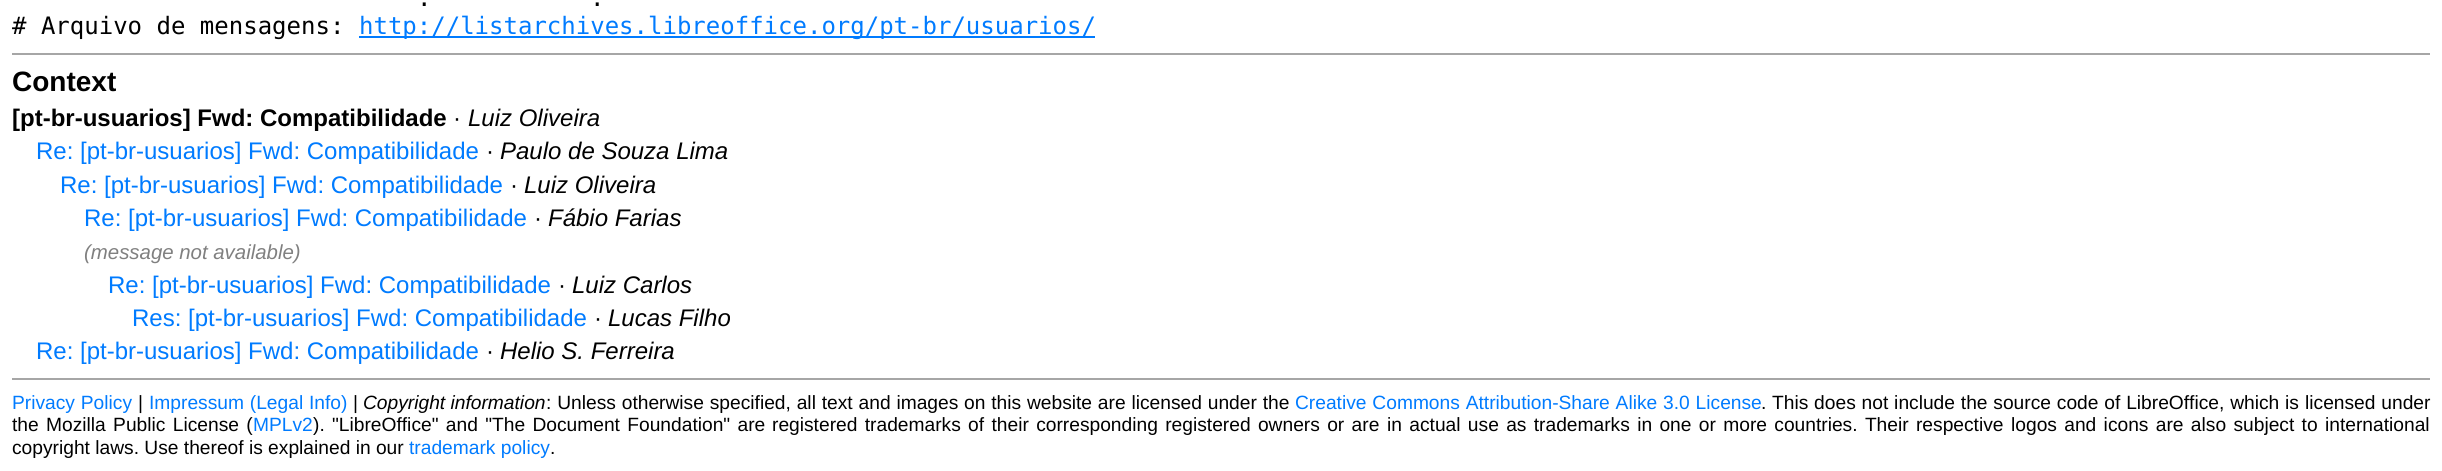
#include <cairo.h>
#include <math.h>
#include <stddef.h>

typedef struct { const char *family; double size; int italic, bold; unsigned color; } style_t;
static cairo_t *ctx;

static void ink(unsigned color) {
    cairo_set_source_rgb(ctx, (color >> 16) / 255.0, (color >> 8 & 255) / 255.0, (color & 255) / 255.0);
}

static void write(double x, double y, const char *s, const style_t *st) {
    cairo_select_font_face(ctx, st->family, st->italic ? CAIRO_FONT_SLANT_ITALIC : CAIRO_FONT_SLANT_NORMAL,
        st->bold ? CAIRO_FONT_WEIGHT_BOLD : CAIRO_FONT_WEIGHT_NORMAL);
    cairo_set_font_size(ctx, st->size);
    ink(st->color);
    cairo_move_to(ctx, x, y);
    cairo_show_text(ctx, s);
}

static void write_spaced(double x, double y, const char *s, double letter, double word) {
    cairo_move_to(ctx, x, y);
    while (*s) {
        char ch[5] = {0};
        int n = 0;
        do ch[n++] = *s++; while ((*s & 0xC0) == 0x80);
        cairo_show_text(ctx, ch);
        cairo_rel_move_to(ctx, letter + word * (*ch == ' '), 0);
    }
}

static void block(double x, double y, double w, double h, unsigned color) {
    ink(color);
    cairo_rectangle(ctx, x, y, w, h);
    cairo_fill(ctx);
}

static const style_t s1 = {"DejaVu Sans Mono", 24, 0, 0, 0x000000};
static const style_t s2 = {"DejaVu Sans Mono", 24, 0, 0, 0x007bff};
static const style_t s3 = {"Liberation Sans", 28, 0, 1, 0x000000};
static const style_t s4 = {"Liberation Sans", 24, 0, 1, 0x000000};
static const style_t s5 = {"Liberation Sans", 24, 0, 0, 0x000000};
static const style_t s6 = {"Liberation Sans", 24, 1, 0, 0x000000};
static const style_t s7 = {"Liberation Sans", 24, 0, 0, 0x007bff};
static const style_t s8 = {"Liberation Sans", 20.4, 1, 0, 0x808080};
static const style_t s9 = {"Liberation Sans", 19.2, 0, 0, 0x000000};
static const style_t s10 = {"Liberation Sans", 19.2, 1, 0, 0x000000};
static const style_t s11 = {"Liberation Sans", 19.2, 0, 0, 0x007bff};

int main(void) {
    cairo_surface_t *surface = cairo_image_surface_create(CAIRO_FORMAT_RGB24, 2442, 471);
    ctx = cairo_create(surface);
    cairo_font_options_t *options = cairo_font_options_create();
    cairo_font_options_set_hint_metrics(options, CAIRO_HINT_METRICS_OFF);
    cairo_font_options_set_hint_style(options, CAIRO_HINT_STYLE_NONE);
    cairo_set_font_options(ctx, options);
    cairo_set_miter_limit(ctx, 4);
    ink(0xffffff);
    cairo_paint(ctx);
    write(417, 6, ".", &s1);
    write(590, 6, ".", &s1);
    write(12, 34, "# Arquivo de mensagens:", &s1);
    block(359, 36, 736, 2, 0x007bff);
    write(359, 34, "http://listarchives.libreoffice.org/pt-br/usuarios/", &s2);
    block(12, 53, 2418, 2, 0xa6a6a6);
    write(12, 91, "Context", &s3);
    write(12, 126, "[pt-br-usuarios] Fwd: Compatibilidade", &s4);
    write(453, 126, "·", &s5);
    write(468, 126, "Luiz Oliveira", &s6);
    write(36, 159, "Re: [pt-br-usuarios] Fwd: Compatibilidade", &s7);
    write(486, 159, "·", &s5);
    write(500, 159, "Paulo de Souza Lima", &s6);
    write(60, 193, "Re: [pt-br-usuarios] Fwd: Compatibilidade", &s7);
    write(510, 193, "·", &s5);
    write(524, 193, "Luiz Oliveira", &s6);
    write(84, 226, "Re: [pt-br-usuarios] Fwd: Compatibilidade", &s7);
    write(534, 226, "·", &s5);
    write(548, 226, "Fábio Farias", &s6);
    write(84, 259, "(message not available)", &s8);
    write(108, 293, "Re: [pt-br-usuarios] Fwd: Compatibilidade", &s7);
    write(558, 293, "·", &s5);
    write(572, 293, "Luiz Carlos", &s6);
    write(132, 326, "Res: [pt-br-usuarios] Fwd: Compatibilidade", &s7);
    write(594, 326, "·", &s5);
    write(608, 326, "Lucas Filho", &s6);
    write(36, 359, "Re: [pt-br-usuarios] Fwd: Compatibilidade", &s7);
    write(486, 359, "·", &s5);
    write(500, 359, "Helio S. Ferreira", &s6);
    block(12, 378, 2418, 2, 0xa6a6a6);
    cairo_select_font_face(ctx, "Liberation Sans", CAIRO_FONT_SLANT_NORMAL, CAIRO_FONT_WEIGHT_NORMAL);
    cairo_set_font_size(ctx, 19.2);
    ink(0x007bff);
    write_spaced(12, 409, "Privacy Policy", 0, 0.5);
    write(138, 409, "|", &s9);
    ink(0x007bff);
    write_spaced(149, 409, "Impressum (Legal Info)", 0, 0.5);
    write(353, 409, "|", &s9);
    write(363, 409, "Copyright information", &s10);
    cairo_select_font_face(ctx, "Liberation Sans", CAIRO_FONT_SLANT_NORMAL, CAIRO_FONT_WEIGHT_NORMAL);
    write_spaced(546, 409, ": Unless otherwise specified, all text and images", 0, 0.5);
    write_spaced(964, 409, "on this website are licensed under the", 0, 0.5);
    ink(0x007bff);
    write_spaced(1295, 409, "Creative Commons Attribution-Share Alike 3.0 License", 0, 0.5);
    write(1761, 409, ".", &s9);
    write_spaced(1772, 409, "This does not include the source code of LibreOffice, which is", 0, 0.5);
    write_spaced(2305, 409, "licensed under", 0, 0.5);
    write_spaced(12, 431, "the Mozilla Public License (", 0, 2);
    write(253, 431, "MPLv2", &s11);
    write(313, 431, ").", &s9);
    write_spaced(332, 431, "\"LibreOffice\" and \"The Document Foundation\" are", 0, 2);
    write_spaced(772, 431, "registered trademarks of their corresponding registered owners or are", 0, 2);
    write_spaced(1387, 431, "in actual use as trademarks in one or more countries. Their respective", 0, 2);
    write_spaced(2011, 431, "logos and icons are also subject to international", 0, 2);
    write(12, 454, "copyright laws. Use thereof is explained in our", &s9);
    write(409, 454, "trademark policy", &s11);
    write(550, 454, ".", &s9);
    cairo_surface_write_to_png(surface, "screenshot.png");
    cairo_font_options_destroy(options);
    cairo_destroy(ctx);
    cairo_surface_destroy(surface);
    return 0;
}
